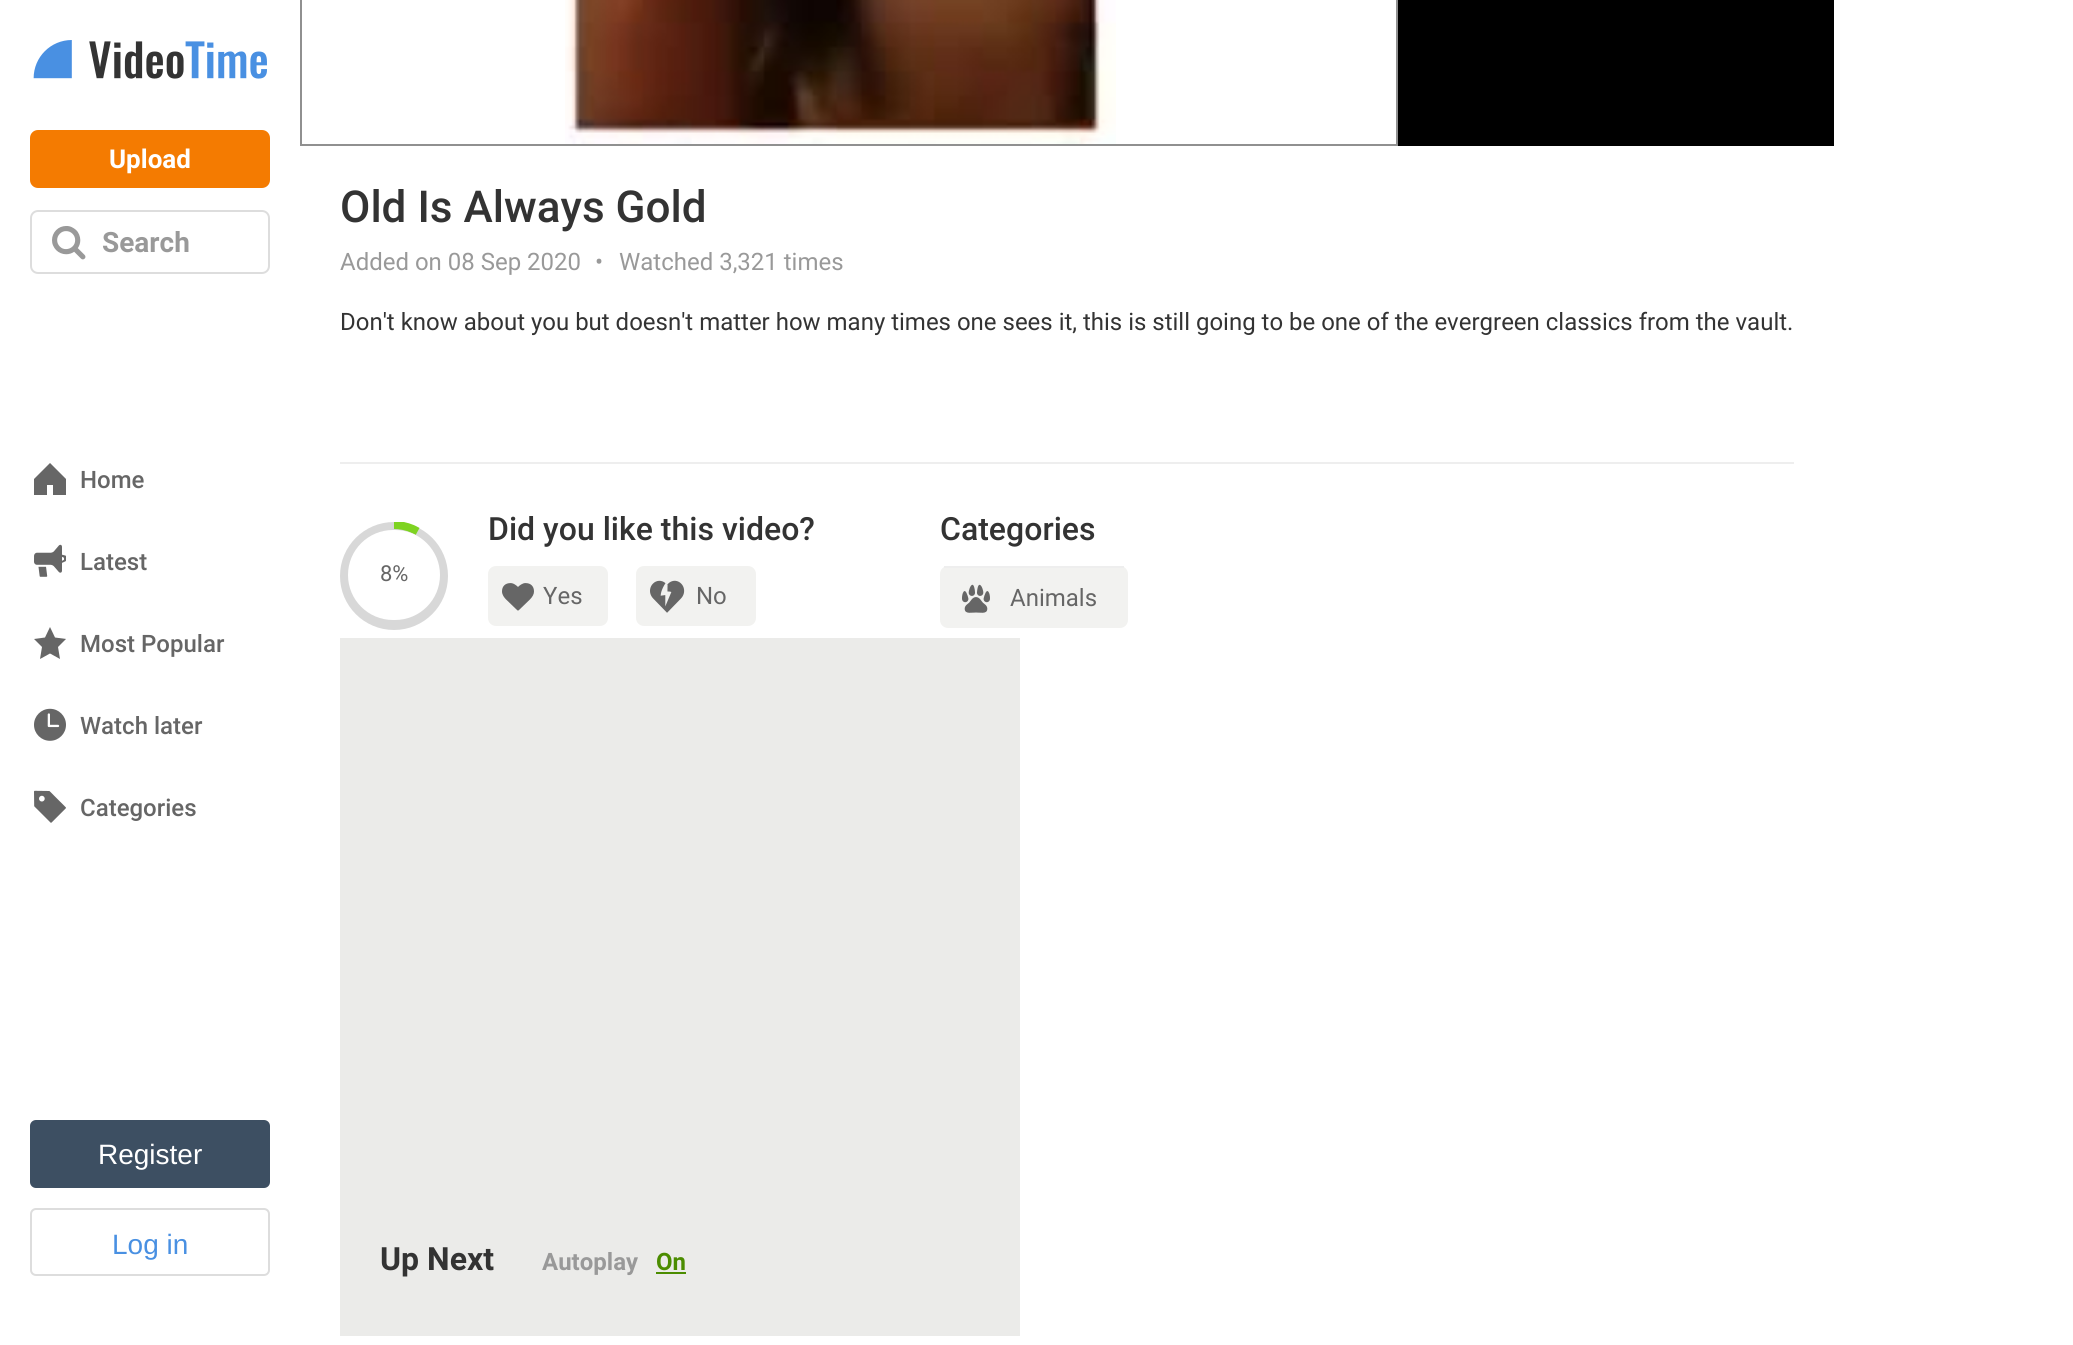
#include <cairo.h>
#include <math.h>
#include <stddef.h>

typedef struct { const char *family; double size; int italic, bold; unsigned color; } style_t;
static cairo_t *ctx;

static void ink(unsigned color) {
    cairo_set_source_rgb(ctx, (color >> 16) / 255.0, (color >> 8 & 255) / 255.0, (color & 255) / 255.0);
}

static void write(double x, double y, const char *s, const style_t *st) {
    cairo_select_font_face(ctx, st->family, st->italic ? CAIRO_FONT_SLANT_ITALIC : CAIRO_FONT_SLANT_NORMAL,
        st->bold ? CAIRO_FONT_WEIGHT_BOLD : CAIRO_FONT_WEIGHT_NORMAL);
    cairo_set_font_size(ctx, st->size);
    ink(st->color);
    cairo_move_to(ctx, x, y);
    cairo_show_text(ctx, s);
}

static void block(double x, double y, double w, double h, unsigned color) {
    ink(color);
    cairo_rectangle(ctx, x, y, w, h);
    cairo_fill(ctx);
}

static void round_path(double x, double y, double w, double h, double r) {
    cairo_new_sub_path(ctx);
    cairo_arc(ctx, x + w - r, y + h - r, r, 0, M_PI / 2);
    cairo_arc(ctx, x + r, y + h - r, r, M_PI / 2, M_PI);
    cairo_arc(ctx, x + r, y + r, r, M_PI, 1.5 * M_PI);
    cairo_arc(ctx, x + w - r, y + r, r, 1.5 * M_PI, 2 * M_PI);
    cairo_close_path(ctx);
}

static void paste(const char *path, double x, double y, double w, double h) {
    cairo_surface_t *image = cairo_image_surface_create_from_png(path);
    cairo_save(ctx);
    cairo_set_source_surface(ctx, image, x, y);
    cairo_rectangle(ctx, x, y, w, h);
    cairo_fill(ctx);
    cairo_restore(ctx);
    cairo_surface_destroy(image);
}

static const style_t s1 = {"Roboto", 26, 0, 1, 0xffffff};
static const style_t s2 = {"Roboto", 28, 0, 1, 0x999999};
static const style_t s3 = {"Roboto Medium", 24, 0, 0, 0x666666};
static const style_t s4 = {"Liberation Sans", 28, 0, 0, 0xffffff};
static const style_t s5 = {"Liberation Sans", 28, 0, 0, 0x4990e2};
static const style_t s6 = {"Roboto Medium", 44, 0, 0, 0x333333};
static const style_t s7 = {"Roboto", 24, 0, 0, 0x999999};
static const style_t s8 = {"Roboto", 24, 0, 0, 0x333333};
static const style_t s9 = {"Roboto", 22, 0, 0, 0x666666};
static const style_t s10 = {"Roboto Medium", 32, 0, 0, 0x333333};
static const style_t s11 = {"Roboto", 24, 0, 0, 0x666666};
static const style_t s12 = {"Roboto", 32, 0, 1, 0x333333};
static const style_t s13 = {"Roboto", 24, 0, 1, 0x999999};
static const style_t s14 = {"Roboto", 24, 0, 1, 0x4b8c00};

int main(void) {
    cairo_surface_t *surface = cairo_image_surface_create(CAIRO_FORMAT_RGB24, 2073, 1345);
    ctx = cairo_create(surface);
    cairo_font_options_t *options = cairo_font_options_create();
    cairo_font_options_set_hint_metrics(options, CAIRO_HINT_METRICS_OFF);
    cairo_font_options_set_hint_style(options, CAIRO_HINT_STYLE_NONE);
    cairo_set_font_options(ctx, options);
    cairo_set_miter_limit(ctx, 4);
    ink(0xffffff);
    cairo_paint(ctx);
    paste("pic1.png", 33, 40, 234, 39);
    ink(0xf47b01);
    round_path(30, 130, 240, 58, 8);
    cairo_fill(ctx);
    write(109, 168, "Upload", &s1);
    round_path(31, 211, 238, 62, 7);
    ink(0xdddddd);
    cairo_stroke(ctx);
    paste("pic2.png", 52, 226, 34, 34);
    write(102, 252, "Search", &s2);
    ink(0x666666);
    cairo_new_path(ctx);
    cairo_move_to(ctx, 50, 463);
    cairo_line_to(ctx, 34, 479);
    cairo_line_to(ctx, 34, 495);
    cairo_line_to(ctx, 47, 495);
    cairo_line_to(ctx, 47, 485);
    cairo_line_to(ctx, 53, 485);
    cairo_line_to(ctx, 53, 495);
    cairo_line_to(ctx, 66, 495);
    cairo_line_to(ctx, 66, 479);
    cairo_close_path(ctx);
    cairo_fill(ctx);
    write(80, 488, "Home", &s3);
    paste("pic3.png", 34, 544, 32, 33);
    write(80, 570, "Latest", &s3);
    cairo_new_path(ctx);
    cairo_move_to(ctx, 50, 627);
    cairo_line_to(ctx, 45, 637.5);
    cairo_line_to(ctx, 34, 639);
    cairo_line_to(ctx, 42, 647);
    cairo_line_to(ctx, 40, 659);
    cairo_line_to(ctx, 50, 653.5);
    cairo_line_to(ctx, 60, 659);
    cairo_line_to(ctx, 58, 647);
    cairo_line_to(ctx, 66, 639);
    cairo_line_to(ctx, 55, 637.5);
    cairo_close_path(ctx);
    cairo_fill(ctx);
    write(80, 652, "Most Popular", &s3);
    paste("pic4.png", 34, 708, 32, 33);
    write(80, 734, "Watch later", &s3);
    paste("pic5.png", 34, 790, 32, 33);
    write(80, 816, "Categories", &s3);
    ink(0x3d4f62);
    round_path(30, 1120, 240, 68, 6);
    cairo_fill(ctx);
    write(98, 1164, "Register", &s4);
    round_path(31, 1209, 238, 66, 5);
    ink(0xdddddd);
    cairo_stroke(ctx);
    write(112, 1254, "Log in", &s5);
    block(1398, 0, 436, 146, 0x000000);
    cairo_rectangle(ctx, 301, -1, 1096, 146);
    ink(0x909090);
    cairo_stroke(ctx);
    paste("pic6.png", 565, 0, 551, 144);
    write(340, 222, "Old Is Always Gold", &s6);
    write(340, 270, "Added on 08 Sep 2020", &s7);
    write(595, 270, "•", &s7);
    write(619, 270, "Watched 3,321 times", &s7);
    write(340, 330, "Don't know about you but doesn't matter how many times one sees it, this is still going to be one of the evergreen classics from the vault.", &s8);
    block(340, 462, 1454, 2, 0xeeeeee);
    ink(0xd8d8d8);
    cairo_new_path(ctx);
    cairo_arc(ctx, 394, 576, 54, 0, 2 * M_PI);
    cairo_fill(ctx);
    cairo_save(ctx);
    cairo_rectangle(ctx, 394, 522, 54, 108);
    cairo_clip(ctx);
    cairo_new_path(ctx);
    cairo_move_to(ctx, 372.5, 502);
    cairo_line_to(ctx, 419.5, 528);
    cairo_line_to(ctx, 367.5, 622.5);
    cairo_line_to(ctx, 320.5, 596.5);
    cairo_close_path(ctx);
    cairo_clip(ctx);
    cairo_new_path(ctx);
    cairo_move_to(ctx, 417, 531);
    cairo_curve_to(ctx, 441, 544, 449.5, 574, 436.5, 598);
    cairo_curve_to(ctx, 423.5, 622, 393.5, 630.5, 369.5, 617.5);
    cairo_curve_to(ctx, 345.5, 604.5, 337, 574.5, 350, 550.5);
    cairo_curve_to(ctx, 363, 526.5, 393, 518, 417, 531);
    cairo_close_path(ctx);
    ink(0x7ed321);
    cairo_set_line_width(ctx, 8);
    cairo_stroke(ctx);
    cairo_restore(ctx);
    ink(0xffffff);
    round_path(348, 530, 92, 90, 45);
    cairo_fill(ctx);
    write(380, 581, "8%", &s9);
    write(488, 540, "Did you like this video?", &s10);
    ink(0xf2f2f0);
    round_path(488, 566, 120, 60, 8);
    cairo_fill(ctx);
    paste("pic7.png", 502, 583, 32, 28);
    write(543, 604, "Yes", &s11);
    ink(0xf2f2f0);
    round_path(636, 566, 120, 60, 8);
    cairo_fill(ctx);
    paste("pic8.png", 650, 580, 35, 33);
    write(696, 604, "No", &s11);
    write(940, 540, "Categories", &s10);
    ink(0xf2f2f0);
    round_path(940, 566, 188, 62, 8);
    cairo_fill(ctx);
    block(944, 566, 180, 2, 0xeeeeee);
    paste("pic9.png", 962, 584, 28, 29);
    write(1010, 606, "Animals", &s11);
    block(340, 638, 680, 698, 0xebebe9);
    write(380, 1270, "Up Next", &s12);
    write(542, 1270, "Autoplay", &s13);
    write(656, 1270, "On", &s14);
    block(656, 1272, 30, 2, 0x4b8c00);
    cairo_surface_write_to_png(surface, "screenshot.png");
    cairo_font_options_destroy(options);
    cairo_destroy(ctx);
    cairo_surface_destroy(surface);
    return 0;
}
